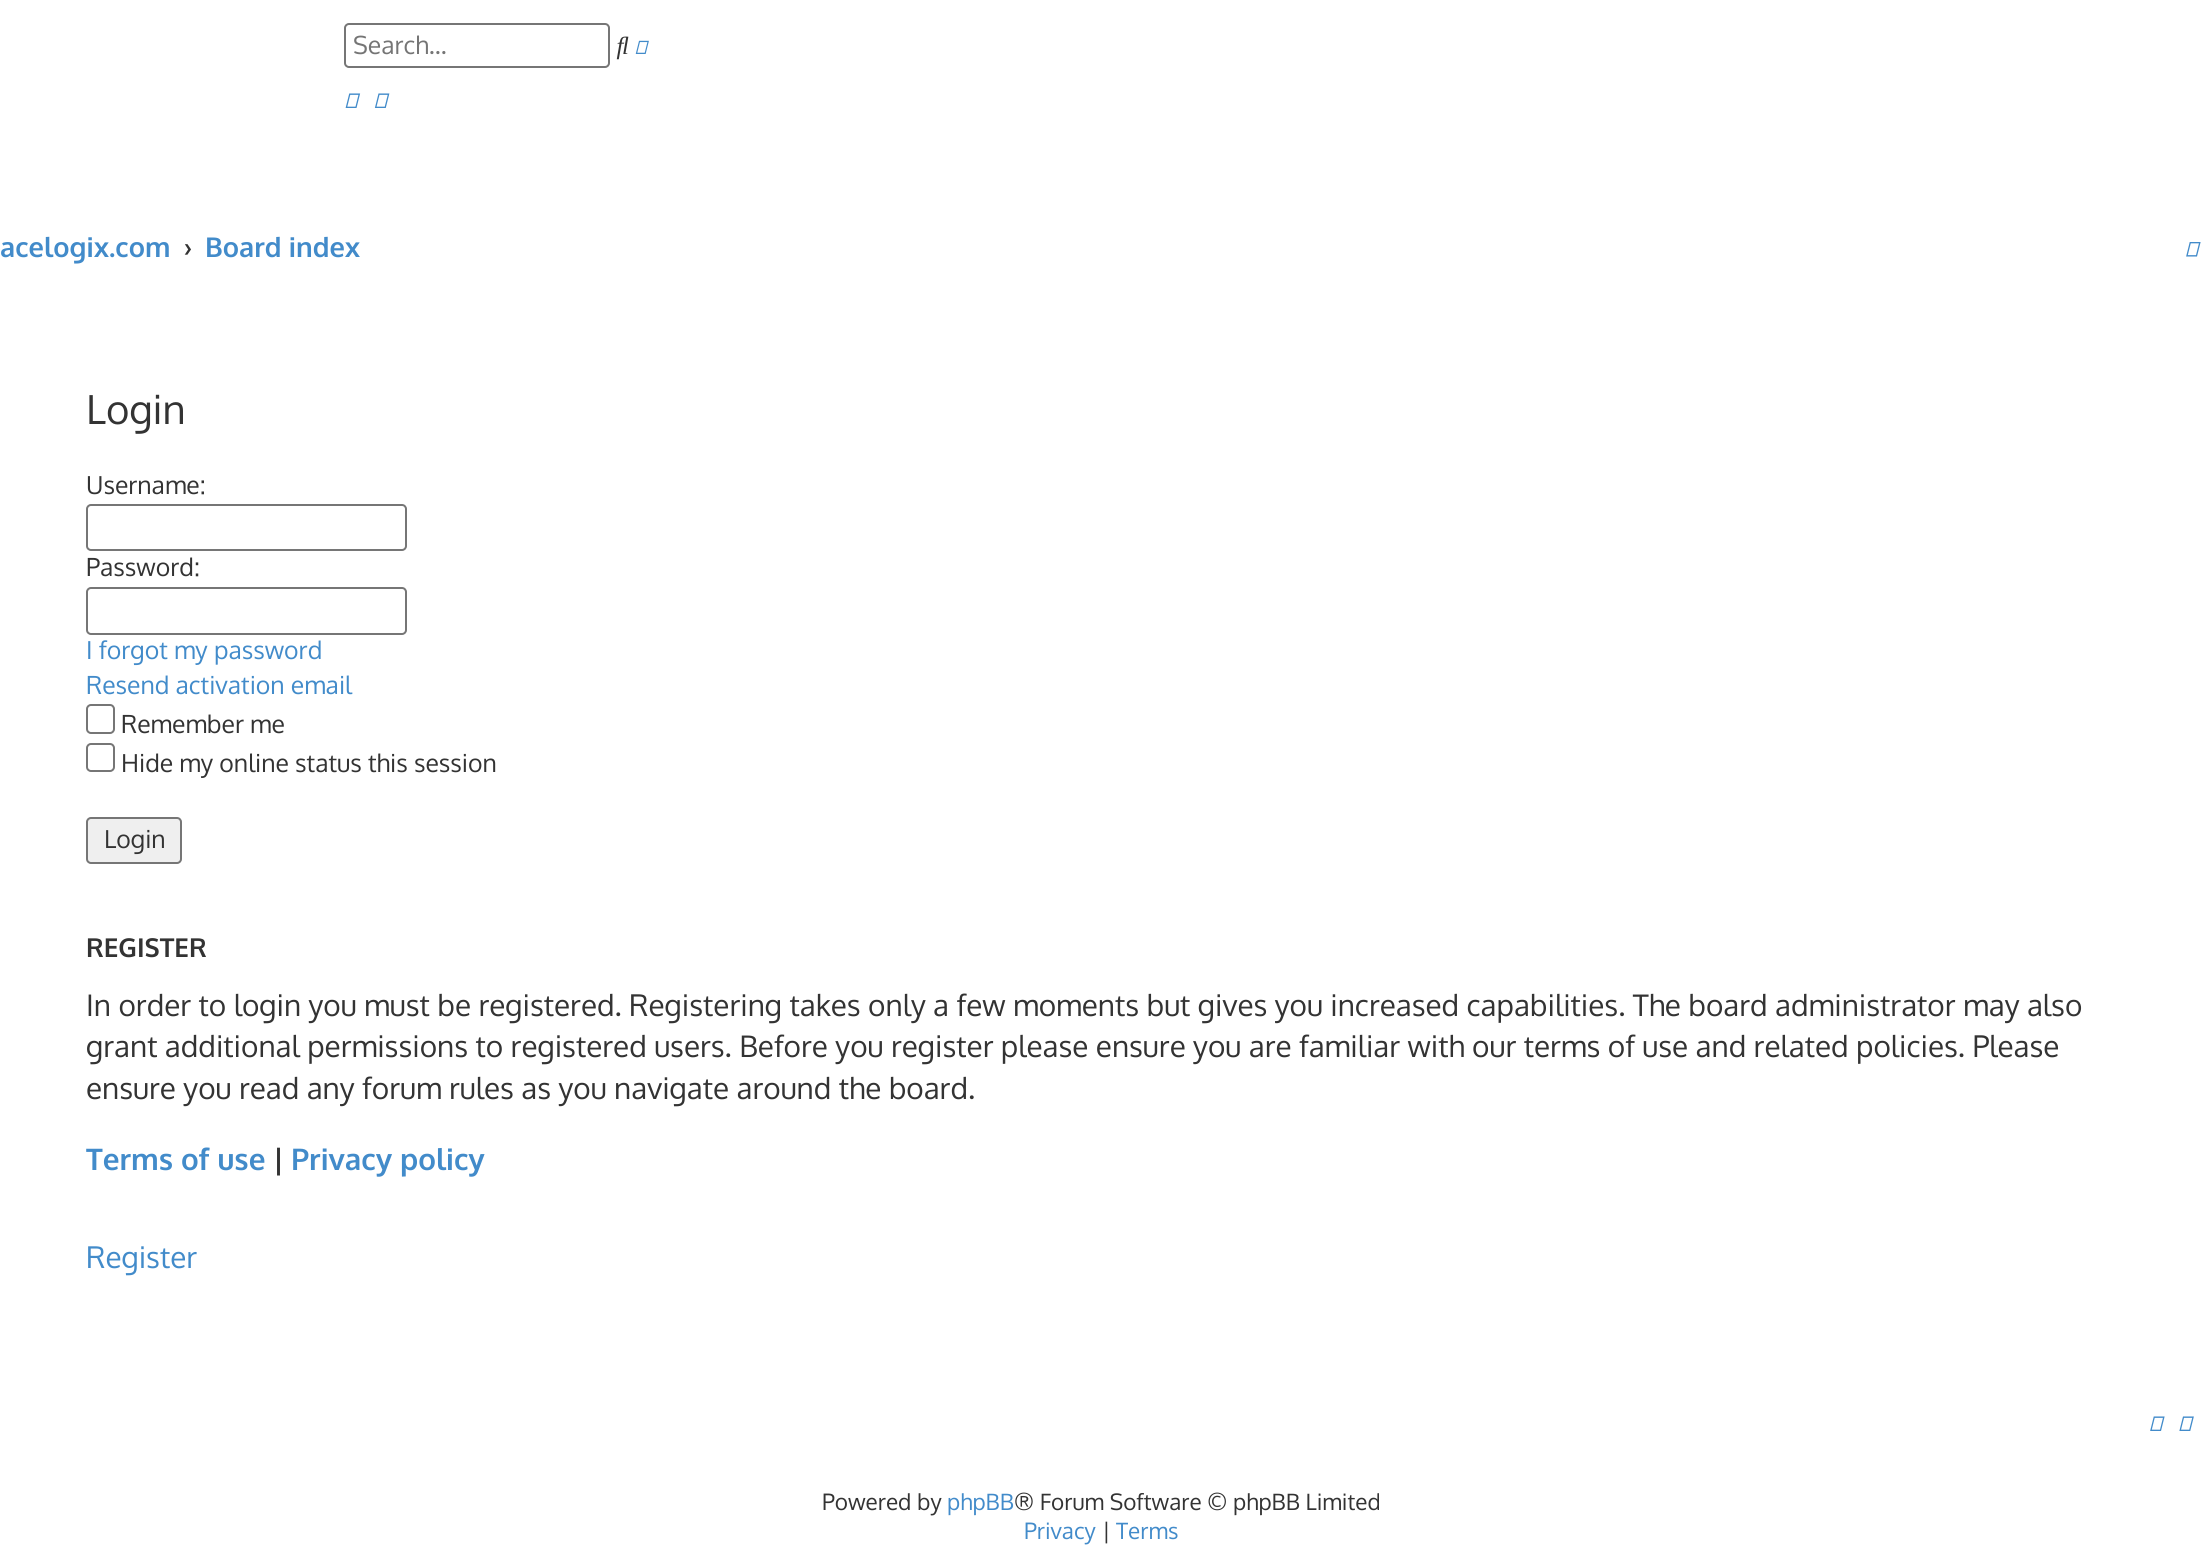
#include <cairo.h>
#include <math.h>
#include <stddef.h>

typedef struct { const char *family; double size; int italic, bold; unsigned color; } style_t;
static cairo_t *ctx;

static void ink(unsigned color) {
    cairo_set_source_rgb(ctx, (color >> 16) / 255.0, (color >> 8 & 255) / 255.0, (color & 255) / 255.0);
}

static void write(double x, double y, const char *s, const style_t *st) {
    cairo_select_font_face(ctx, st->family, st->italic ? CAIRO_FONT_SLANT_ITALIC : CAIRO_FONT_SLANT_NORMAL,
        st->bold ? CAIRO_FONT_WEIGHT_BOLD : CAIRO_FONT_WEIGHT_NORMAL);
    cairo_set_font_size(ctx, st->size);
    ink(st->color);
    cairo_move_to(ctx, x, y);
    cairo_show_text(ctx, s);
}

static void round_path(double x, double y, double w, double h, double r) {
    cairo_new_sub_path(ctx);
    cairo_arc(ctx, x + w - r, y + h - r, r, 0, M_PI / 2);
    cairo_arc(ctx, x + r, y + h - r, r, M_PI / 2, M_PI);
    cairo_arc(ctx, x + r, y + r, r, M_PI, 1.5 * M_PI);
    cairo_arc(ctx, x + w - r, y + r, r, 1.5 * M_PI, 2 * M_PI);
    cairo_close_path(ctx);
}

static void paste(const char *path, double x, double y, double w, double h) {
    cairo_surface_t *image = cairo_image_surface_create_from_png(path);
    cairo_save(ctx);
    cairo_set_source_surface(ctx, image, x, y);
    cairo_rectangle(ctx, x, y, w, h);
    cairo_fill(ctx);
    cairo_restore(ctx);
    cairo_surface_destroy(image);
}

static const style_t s1 = {"Oxygen", 24.75, 0, 0, 0x757575};
static const style_t s2 = {"Oxygen", 27.25, 0, 1, 0x428bca};
static const style_t s3 = {"Oxygen", 27.25, 0, 1, 0x333333};
static const style_t s4 = {"Oxygen", 40, 0, 0, 0x333333};
static const style_t s5 = {"Oxygen", 24.75, 0, 0, 0x333333};
static const style_t s6 = {"Oxygen", 24.75, 0, 0, 0x428bca};
static const style_t s7 = {"Oxygen", 26, 0, 1, 0x333333};
static const style_t s8 = {"Oxygen", 29.7, 0, 0, 0x333333};
static const style_t s9 = {"Oxygen", 29.7, 0, 1, 0x428bca};
static const style_t s10 = {"Oxygen", 29.7, 0, 1, 0x333333};
static const style_t s11 = {"Oxygen", 29.7, 0, 0, 0x428bca};
static const style_t s12 = {"Oxygen", 22.5, 0, 0, 0x333333};
static const style_t s13 = {"Oxygen", 22.5, 0, 0, 0x428bca};

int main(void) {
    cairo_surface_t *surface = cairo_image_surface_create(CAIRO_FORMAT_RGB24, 2202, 1556);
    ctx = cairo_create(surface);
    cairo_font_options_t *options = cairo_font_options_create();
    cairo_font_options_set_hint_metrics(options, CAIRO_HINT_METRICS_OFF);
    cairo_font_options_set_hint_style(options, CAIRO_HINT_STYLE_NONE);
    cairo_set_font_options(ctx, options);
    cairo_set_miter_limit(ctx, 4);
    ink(0xffffff);
    cairo_paint(ctx);
    round_path(345, 24, 264, 43, 4);
    ink(0x767676);
    cairo_stroke(ctx);
    write(353, 54, "Search…", &s1);
    paste("pic1.png", 616, 36, 13, 24);
    paste("pic2.png", 635, 40, 14, 14);
    paste("pic3.png", 345, 93, 16, 15);
    paste("pic4.png", 374, 93, 16, 15);
    write(0, 257, "acelogix.com", &s2);
    write(184, 257, "›", &s3);
    write(205, 257, "Board index", &s2);
    paste("pic5.png", 2186, 242, 15, 15);
    write(86, 424, "Login", &s4);
    write(86, 494, "Username:", &s5);
    round_path(87, 505, 319, 45, 4);
    ink(0x767676);
    cairo_stroke(ctx);
    write(86, 576, "Password:", &s5);
    round_path(87, 588, 319, 46, 4);
    ink(0x767676);
    cairo_stroke(ctx);
    write(86, 659, "I forgot my password", &s6);
    write(86, 694, "Resend activation email", &s6);
    round_path(87, 705, 27, 28, 4);
    ink(0x767676);
    cairo_stroke(ctx);
    write(121, 733, "Remember me", &s5);
    round_path(87, 744, 27, 27, 4);
    ink(0x767676);
    cairo_stroke(ctx);
    write(121, 772, "Hide my online status this session", &s5);
    ink(0xefefef);
    round_path(87, 818, 94, 45, 4);
    cairo_fill_preserve(ctx);
    ink(0x767676);
    cairo_stroke(ctx);
    write(104, 848, "Login", &s5);
    write(86, 957, "REGISTER", &s7);
    write(86, 1016, "In order to login you must be registered. Registering takes only a few moments but gives you increased capabilities. The board administrator may also", &s8);
    write(86, 1057, "grant additional permissions to registered users. Before you register please ensure you are familiar with our terms of use and related policies. Please", &s8);
    write(86, 1099, "ensure you read any forum rules as you navigate around the board.", &s8);
    cairo_save(ctx);
    cairo_rectangle(ctx, 86, 916, 2031, 394);
    cairo_clip(ctx);
    write(86, 1170, "Terms of use", &s9);
    cairo_restore(ctx);
    write(273, 1170, "|", &s10);
    write(291, 1170, "Privacy policy", &s9);
    write(86, 1268, "Register", &s11);
    paste("pic6.png", 2150, 1416, 15, 15);
    paste("pic7.png", 2179, 1416, 15, 15);
    write(822, 1510, "Powered by", &s12);
    write(947, 1510, "phpBB", &s13);
    write(1014, 1510, "® Forum Software © phpBB Limited", &s12);
    write(1024, 1539, "Privacy", &s13);
    write(1102, 1539, "|", &s12);
    write(1116, 1539, "Terms", &s13);
    cairo_surface_write_to_png(surface, "screenshot.png");
    cairo_font_options_destroy(options);
    cairo_destroy(ctx);
    cairo_surface_destroy(surface);
    return 0;
}
